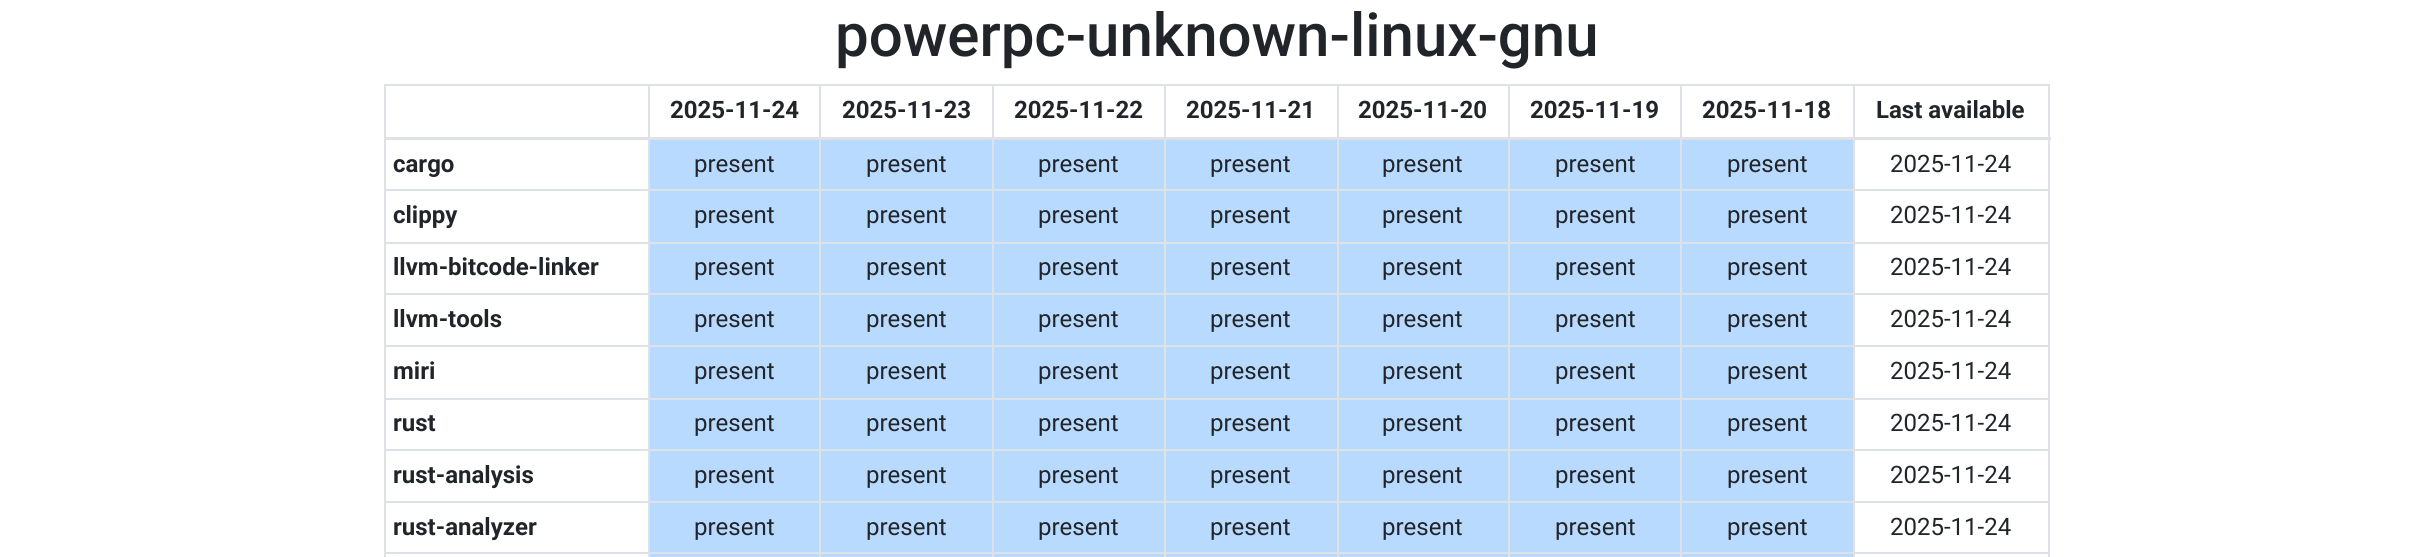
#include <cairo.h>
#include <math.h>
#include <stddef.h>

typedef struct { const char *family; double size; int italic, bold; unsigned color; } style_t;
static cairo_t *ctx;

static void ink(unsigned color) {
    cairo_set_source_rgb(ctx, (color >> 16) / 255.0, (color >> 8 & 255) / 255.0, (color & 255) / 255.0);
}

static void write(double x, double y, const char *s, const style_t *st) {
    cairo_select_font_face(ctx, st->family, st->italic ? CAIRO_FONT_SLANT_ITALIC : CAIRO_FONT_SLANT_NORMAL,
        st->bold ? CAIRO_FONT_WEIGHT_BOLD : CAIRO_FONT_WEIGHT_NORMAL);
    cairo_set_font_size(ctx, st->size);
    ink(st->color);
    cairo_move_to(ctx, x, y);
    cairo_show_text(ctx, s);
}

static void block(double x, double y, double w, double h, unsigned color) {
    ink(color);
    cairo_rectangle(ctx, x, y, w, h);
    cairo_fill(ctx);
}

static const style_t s1 = {"Roboto Medium", 60, 0, 0, 0x212529};
static const style_t s2 = {"Roboto", 24, 0, 1, 0x212529};
static const style_t s3 = {"Roboto", 24, 0, 0, 0x212529};

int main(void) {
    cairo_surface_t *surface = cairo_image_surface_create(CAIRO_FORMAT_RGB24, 2433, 557);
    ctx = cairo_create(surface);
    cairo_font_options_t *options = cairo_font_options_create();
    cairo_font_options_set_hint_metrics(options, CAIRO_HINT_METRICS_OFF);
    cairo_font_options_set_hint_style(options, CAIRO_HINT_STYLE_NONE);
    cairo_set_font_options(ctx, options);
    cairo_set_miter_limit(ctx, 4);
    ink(0xffffff);
    cairo_paint(ctx);
    write(835, 56, "powerpc-unknown-linux-gnu", &s1);
    block(384, 84, 1665, 2, 0xdee2e6);
    block(2048, 84, 2, 473, 0xdee2e6);
    block(384, 84, 2, 473, 0xdee2e6);
    write(670, 118, "2025-11-24", &s2);
    write(842, 118, "2025-11-23", &s2);
    write(1014, 118, "2025-11-22", &s2);
    write(1186, 118, "2025-11-21", &s2);
    write(1358, 118, "2025-11-20", &s2);
    write(1530, 118, "2025-11-19", &s2);
    write(1702, 118, "2025-11-18", &s2);
    block(1853, 189, 196, 2, 0xdee2e6);
    block(1853, 242, 196, 2, 0xdee2e6);
    block(1853, 293, 196, 2, 0xdee2e6);
    block(1853, 345, 196, 2, 0xdee2e6);
    block(1853, 398, 196, 2, 0xdee2e6);
    block(1853, 449, 196, 2, 0xdee2e6);
    block(1853, 501, 196, 2, 0xdee2e6);
    block(1853, 552, 196, 2, 0xdee2e6);
    block(1853, 552, 2, 5, 0xdee2e6);
    block(1680, 552, 174, 2, 0xdee2e6);
    block(1853, 501, 2, 53, 0xdee2e6);
    block(1680, 501, 174, 2, 0xdee2e6);
    block(1853, 449, 2, 54, 0xdee2e6);
    block(1680, 449, 174, 2, 0xdee2e6);
    block(1853, 398, 2, 52, 0xdee2e6);
    block(1680, 398, 174, 2, 0xdee2e6);
    block(1853, 345, 2, 54, 0xdee2e6);
    block(1680, 345, 174, 2, 0xdee2e6);
    block(1853, 293, 2, 54, 0xdee2e6);
    block(1680, 293, 174, 2, 0xdee2e6);
    block(1853, 242, 2, 52, 0xdee2e6);
    block(1680, 242, 174, 2, 0xdee2e6);
    block(1853, 189, 2, 54, 0xdee2e6);
    block(1680, 189, 174, 2, 0xdee2e6);
    block(648, 554, 1205, 3, 0xb8daff);
    block(1680, 552, 2, 5, 0xdee2e6);
    block(1508, 552, 174, 2, 0xdee2e6);
    block(1680, 501, 2, 53, 0xdee2e6);
    block(1508, 501, 174, 2, 0xdee2e6);
    block(1680, 449, 2, 54, 0xdee2e6);
    block(1508, 449, 174, 2, 0xdee2e6);
    block(1680, 398, 2, 52, 0xdee2e6);
    block(1508, 398, 174, 2, 0xdee2e6);
    block(1680, 345, 2, 54, 0xdee2e6);
    block(1508, 345, 174, 2, 0xdee2e6);
    block(1680, 293, 2, 54, 0xdee2e6);
    block(1508, 293, 174, 2, 0xdee2e6);
    block(1680, 242, 2, 52, 0xdee2e6);
    block(1508, 242, 174, 2, 0xdee2e6);
    block(1680, 189, 2, 54, 0xdee2e6);
    block(1508, 189, 174, 2, 0xdee2e6);
    block(1508, 552, 2, 5, 0xdee2e6);
    block(1337, 552, 172, 2, 0xdee2e6);
    block(1508, 501, 2, 53, 0xdee2e6);
    block(1337, 501, 172, 2, 0xdee2e6);
    block(1508, 449, 2, 54, 0xdee2e6);
    block(1337, 449, 172, 2, 0xdee2e6);
    block(1508, 398, 2, 52, 0xdee2e6);
    block(1337, 398, 172, 2, 0xdee2e6);
    block(1508, 345, 2, 54, 0xdee2e6);
    block(1337, 345, 172, 2, 0xdee2e6);
    block(1508, 293, 2, 54, 0xdee2e6);
    block(1337, 293, 172, 2, 0xdee2e6);
    block(1508, 242, 2, 52, 0xdee2e6);
    block(1337, 242, 172, 2, 0xdee2e6);
    block(1508, 189, 2, 54, 0xdee2e6);
    block(1337, 189, 172, 2, 0xdee2e6);
    block(1337, 552, 2, 5, 0xdee2e6);
    block(1164, 552, 174, 2, 0xdee2e6);
    block(1337, 501, 2, 53, 0xdee2e6);
    block(1164, 501, 174, 2, 0xdee2e6);
    block(1337, 449, 2, 54, 0xdee2e6);
    block(1164, 449, 174, 2, 0xdee2e6);
    block(1337, 398, 2, 52, 0xdee2e6);
    block(1164, 398, 174, 2, 0xdee2e6);
    block(1337, 345, 2, 54, 0xdee2e6);
    block(1164, 345, 174, 2, 0xdee2e6);
    block(1337, 293, 2, 54, 0xdee2e6);
    block(1164, 293, 174, 2, 0xdee2e6);
    block(1337, 242, 2, 52, 0xdee2e6);
    block(1164, 242, 174, 2, 0xdee2e6);
    block(1337, 189, 2, 54, 0xdee2e6);
    block(1164, 189, 174, 2, 0xdee2e6);
    block(1164, 552, 2, 5, 0xdee2e6);
    block(992, 552, 174, 2, 0xdee2e6);
    block(1164, 501, 2, 53, 0xdee2e6);
    block(992, 501, 174, 2, 0xdee2e6);
    block(1164, 449, 2, 54, 0xdee2e6);
    block(992, 449, 174, 2, 0xdee2e6);
    block(1164, 398, 2, 52, 0xdee2e6);
    block(992, 398, 174, 2, 0xdee2e6);
    block(1164, 345, 2, 54, 0xdee2e6);
    block(992, 345, 174, 2, 0xdee2e6);
    block(1164, 293, 2, 54, 0xdee2e6);
    block(992, 293, 174, 2, 0xdee2e6);
    block(1164, 242, 2, 52, 0xdee2e6);
    block(992, 242, 174, 2, 0xdee2e6);
    block(1164, 189, 2, 54, 0xdee2e6);
    block(992, 189, 174, 2, 0xdee2e6);
    block(992, 552, 2, 5, 0xdee2e6);
    block(819, 552, 174, 2, 0xdee2e6);
    block(992, 501, 2, 53, 0xdee2e6);
    block(819, 501, 174, 2, 0xdee2e6);
    block(992, 449, 2, 54, 0xdee2e6);
    block(819, 449, 174, 2, 0xdee2e6);
    block(992, 398, 2, 52, 0xdee2e6);
    block(819, 398, 174, 2, 0xdee2e6);
    block(992, 345, 2, 54, 0xdee2e6);
    block(819, 345, 174, 2, 0xdee2e6);
    block(992, 293, 2, 54, 0xdee2e6);
    block(819, 293, 174, 2, 0xdee2e6);
    block(992, 242, 2, 52, 0xdee2e6);
    block(819, 242, 174, 2, 0xdee2e6);
    block(992, 189, 2, 54, 0xdee2e6);
    block(819, 189, 174, 2, 0xdee2e6);
    block(819, 552, 2, 5, 0xdee2e6);
    block(648, 552, 173, 2, 0xdee2e6);
    block(819, 501, 2, 53, 0xdee2e6);
    block(648, 501, 173, 2, 0xdee2e6);
    block(819, 449, 2, 54, 0xdee2e6);
    block(648, 449, 173, 2, 0xdee2e6);
    block(819, 398, 2, 52, 0xdee2e6);
    block(648, 398, 173, 2, 0xdee2e6);
    block(819, 345, 2, 54, 0xdee2e6);
    block(648, 345, 173, 2, 0xdee2e6);
    block(819, 293, 2, 54, 0xdee2e6);
    block(648, 293, 173, 2, 0xdee2e6);
    block(819, 242, 2, 52, 0xdee2e6);
    block(648, 242, 173, 2, 0xdee2e6);
    block(819, 189, 2, 54, 0xdee2e6);
    block(648, 189, 173, 2, 0xdee2e6);
    block(648, 552, 2, 5, 0xdee2e6);
    block(384, 552, 266, 2, 0xdee2e6);
    block(648, 501, 2, 53, 0xdee2e6);
    block(384, 501, 266, 2, 0xdee2e6);
    block(648, 449, 2, 54, 0xdee2e6);
    block(384, 449, 266, 2, 0xdee2e6);
    block(648, 398, 2, 52, 0xdee2e6);
    block(384, 398, 266, 2, 0xdee2e6);
    block(648, 345, 2, 54, 0xdee2e6);
    block(384, 345, 266, 2, 0xdee2e6);
    block(648, 293, 2, 54, 0xdee2e6);
    block(384, 293, 266, 2, 0xdee2e6);
    block(648, 242, 2, 52, 0xdee2e6);
    block(384, 242, 266, 2, 0xdee2e6);
    block(648, 189, 2, 54, 0xdee2e6);
    block(384, 189, 266, 2, 0xdee2e6);
    block(648, 84, 2, 107, 0xdee2e6);
    block(819, 84, 2, 107, 0xdee2e6);
    block(992, 84, 2, 107, 0xdee2e6);
    block(1164, 84, 2, 107, 0xdee2e6);
    block(1337, 84, 2, 107, 0xdee2e6);
    block(1508, 84, 2, 107, 0xdee2e6);
    block(1680, 84, 2, 107, 0xdee2e6);
    block(1853, 84, 2, 107, 0xdee2e6);
    block(384, 137, 1667, 3, 0xdee2e6);
    write(1876, 118, "Last available", &s2);
    write(393, 172, "cargo", &s2);
    block(650, 140, 169, 49, 0xb8daff);
    write(694, 172, "present", &s3);
    block(821, 140, 171, 49, 0xb8daff);
    write(866, 172, "present", &s3);
    block(994, 140, 170, 49, 0xb8daff);
    write(1038, 172, "present", &s3);
    block(1166, 140, 171, 49, 0xb8daff);
    write(1210, 172, "present", &s3);
    block(1339, 140, 169, 49, 0xb8daff);
    write(1382, 172, "present", &s3);
    block(1510, 140, 170, 49, 0xb8daff);
    write(1555, 172, "present", &s3);
    block(1682, 140, 171, 49, 0xb8daff);
    write(1727, 172, "present", &s3);
    write(1890, 172, "2025-11-24", &s3);
    write(393, 223, "clippy", &s2);
    block(650, 191, 169, 51, 0xb8daff);
    write(694, 223, "present", &s3);
    block(821, 191, 171, 51, 0xb8daff);
    write(866, 223, "present", &s3);
    block(994, 191, 170, 51, 0xb8daff);
    write(1038, 223, "present", &s3);
    block(1166, 191, 171, 51, 0xb8daff);
    write(1210, 223, "present", &s3);
    block(1339, 191, 169, 51, 0xb8daff);
    write(1382, 223, "present", &s3);
    block(1510, 191, 170, 51, 0xb8daff);
    write(1555, 223, "present", &s3);
    block(1682, 191, 171, 51, 0xb8daff);
    write(1727, 223, "present", &s3);
    write(1890, 223, "2025-11-24", &s3);
    write(393, 275, "llvm-bitcode-linker", &s2);
    block(650, 244, 169, 49, 0xb8daff);
    write(694, 275, "present", &s3);
    block(821, 244, 171, 49, 0xb8daff);
    write(866, 275, "present", &s3);
    block(994, 244, 170, 49, 0xb8daff);
    write(1038, 275, "present", &s3);
    block(1166, 244, 171, 49, 0xb8daff);
    write(1210, 275, "present", &s3);
    block(1339, 244, 169, 49, 0xb8daff);
    write(1382, 275, "present", &s3);
    block(1510, 244, 170, 49, 0xb8daff);
    write(1555, 275, "present", &s3);
    block(1682, 244, 171, 49, 0xb8daff);
    write(1727, 275, "present", &s3);
    write(1890, 275, "2025-11-24", &s3);
    write(393, 327, "llvm-tools", &s2);
    block(650, 295, 169, 50, 0xb8daff);
    write(694, 327, "present", &s3);
    block(821, 295, 171, 50, 0xb8daff);
    write(866, 327, "present", &s3);
    block(994, 295, 170, 50, 0xb8daff);
    write(1038, 327, "present", &s3);
    block(1166, 295, 171, 50, 0xb8daff);
    write(1210, 327, "present", &s3);
    block(1339, 295, 169, 50, 0xb8daff);
    write(1382, 327, "present", &s3);
    block(1510, 295, 170, 50, 0xb8daff);
    write(1555, 327, "present", &s3);
    block(1682, 295, 171, 50, 0xb8daff);
    write(1727, 327, "present", &s3);
    write(1890, 327, "2025-11-24", &s3);
    write(393, 379, "miri", &s2);
    block(650, 347, 169, 51, 0xb8daff);
    write(694, 379, "present", &s3);
    block(821, 347, 171, 51, 0xb8daff);
    write(866, 379, "present", &s3);
    block(994, 347, 170, 51, 0xb8daff);
    write(1038, 379, "present", &s3);
    block(1166, 347, 171, 51, 0xb8daff);
    write(1210, 379, "present", &s3);
    block(1339, 347, 169, 51, 0xb8daff);
    write(1382, 379, "present", &s3);
    block(1510, 347, 170, 51, 0xb8daff);
    write(1555, 379, "present", &s3);
    block(1682, 347, 171, 51, 0xb8daff);
    write(1727, 379, "present", &s3);
    write(1890, 379, "2025-11-24", &s3);
    write(393, 431, "rust", &s2);
    block(650, 400, 169, 49, 0xb8daff);
    write(694, 431, "present", &s3);
    block(821, 400, 171, 49, 0xb8daff);
    write(866, 431, "present", &s3);
    block(994, 400, 170, 49, 0xb8daff);
    write(1038, 431, "present", &s3);
    block(1166, 400, 171, 49, 0xb8daff);
    write(1210, 431, "present", &s3);
    block(1339, 400, 169, 49, 0xb8daff);
    write(1382, 431, "present", &s3);
    block(1510, 400, 170, 49, 0xb8daff);
    write(1555, 431, "present", &s3);
    block(1682, 400, 171, 49, 0xb8daff);
    write(1727, 431, "present", &s3);
    write(1890, 431, "2025-11-24", &s3);
    write(393, 483, "rust-analysis", &s2);
    block(650, 451, 169, 50, 0xb8daff);
    write(694, 483, "present", &s3);
    block(821, 451, 171, 50, 0xb8daff);
    write(866, 483, "present", &s3);
    block(994, 451, 170, 50, 0xb8daff);
    write(1038, 483, "present", &s3);
    block(1166, 451, 171, 50, 0xb8daff);
    write(1210, 483, "present", &s3);
    block(1339, 451, 169, 50, 0xb8daff);
    write(1382, 483, "present", &s3);
    block(1510, 451, 170, 50, 0xb8daff);
    write(1555, 483, "present", &s3);
    block(1682, 451, 171, 50, 0xb8daff);
    write(1727, 483, "present", &s3);
    write(1890, 483, "2025-11-24", &s3);
    write(393, 535, "rust-analyzer", &s2);
    block(650, 503, 169, 49, 0xb8daff);
    write(694, 535, "present", &s3);
    block(821, 503, 171, 49, 0xb8daff);
    write(866, 535, "present", &s3);
    block(994, 503, 170, 49, 0xb8daff);
    write(1038, 535, "present", &s3);
    block(1166, 503, 171, 49, 0xb8daff);
    write(1210, 535, "present", &s3);
    block(1339, 503, 169, 49, 0xb8daff);
    write(1382, 535, "present", &s3);
    block(1510, 503, 170, 49, 0xb8daff);
    write(1555, 535, "present", &s3);
    block(1682, 503, 171, 49, 0xb8daff);
    write(1727, 535, "present", &s3);
    write(1890, 535, "2025-11-24", &s3);
    cairo_surface_write_to_png(surface, "screenshot.png");
    cairo_font_options_destroy(options);
    cairo_destroy(ctx);
    cairo_surface_destroy(surface);
    return 0;
}
